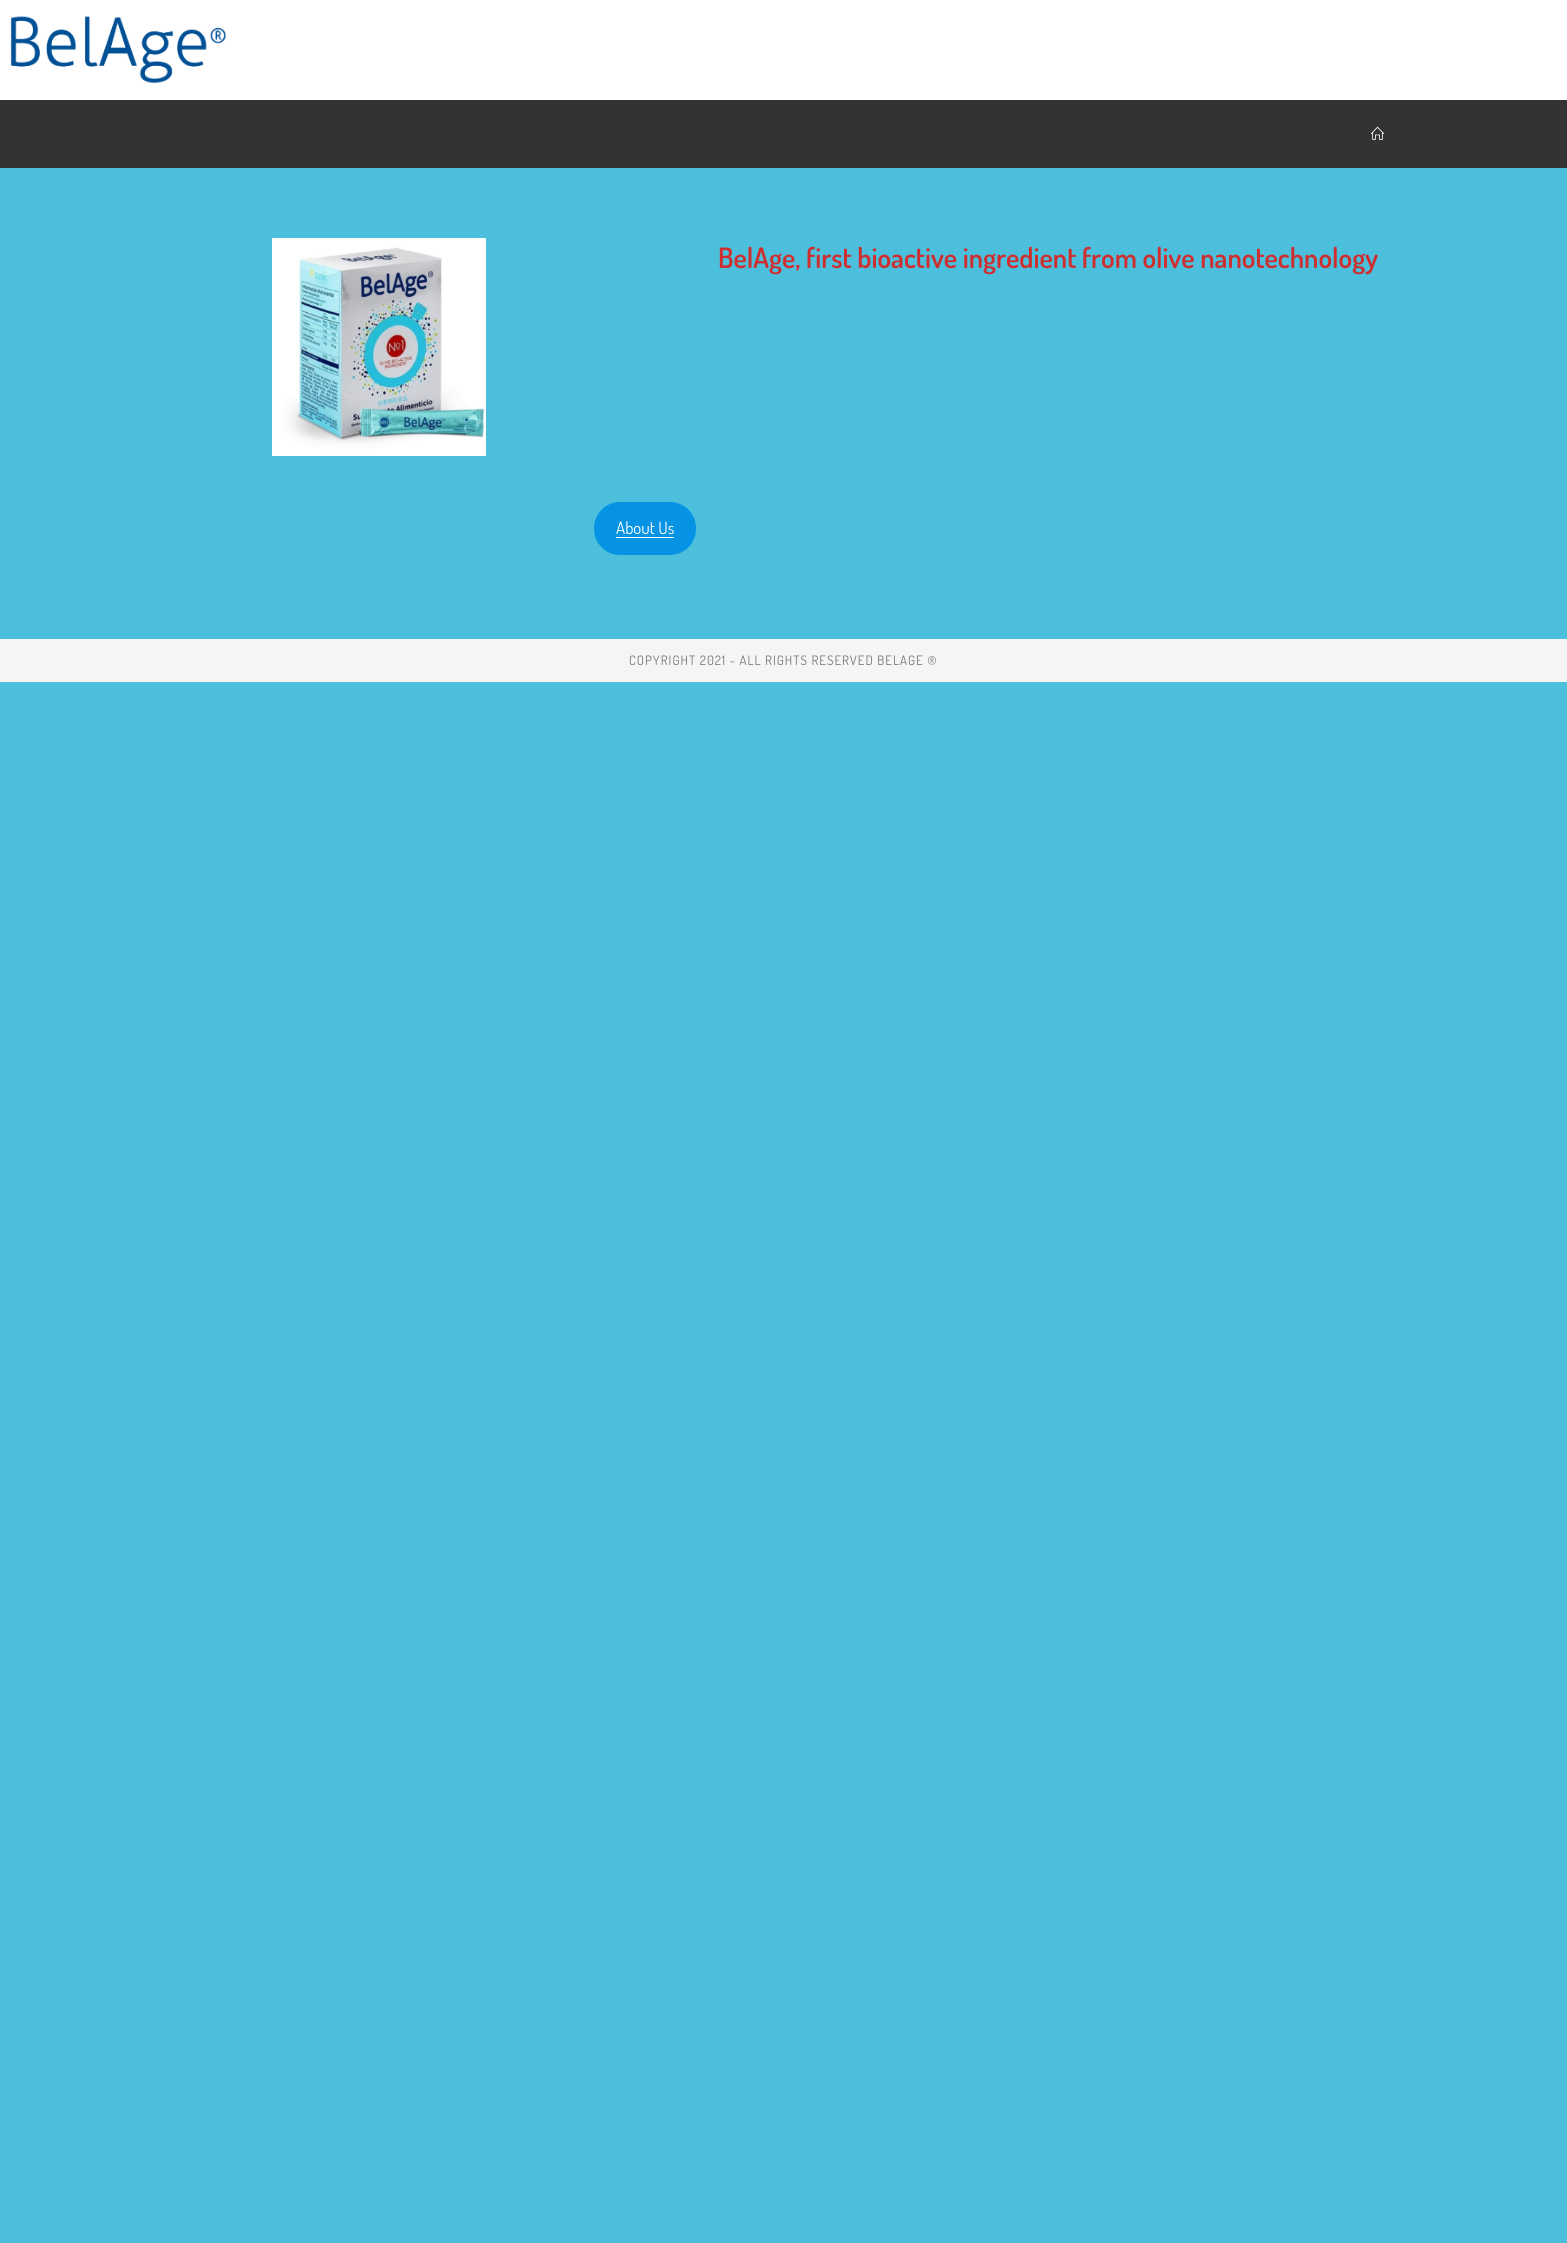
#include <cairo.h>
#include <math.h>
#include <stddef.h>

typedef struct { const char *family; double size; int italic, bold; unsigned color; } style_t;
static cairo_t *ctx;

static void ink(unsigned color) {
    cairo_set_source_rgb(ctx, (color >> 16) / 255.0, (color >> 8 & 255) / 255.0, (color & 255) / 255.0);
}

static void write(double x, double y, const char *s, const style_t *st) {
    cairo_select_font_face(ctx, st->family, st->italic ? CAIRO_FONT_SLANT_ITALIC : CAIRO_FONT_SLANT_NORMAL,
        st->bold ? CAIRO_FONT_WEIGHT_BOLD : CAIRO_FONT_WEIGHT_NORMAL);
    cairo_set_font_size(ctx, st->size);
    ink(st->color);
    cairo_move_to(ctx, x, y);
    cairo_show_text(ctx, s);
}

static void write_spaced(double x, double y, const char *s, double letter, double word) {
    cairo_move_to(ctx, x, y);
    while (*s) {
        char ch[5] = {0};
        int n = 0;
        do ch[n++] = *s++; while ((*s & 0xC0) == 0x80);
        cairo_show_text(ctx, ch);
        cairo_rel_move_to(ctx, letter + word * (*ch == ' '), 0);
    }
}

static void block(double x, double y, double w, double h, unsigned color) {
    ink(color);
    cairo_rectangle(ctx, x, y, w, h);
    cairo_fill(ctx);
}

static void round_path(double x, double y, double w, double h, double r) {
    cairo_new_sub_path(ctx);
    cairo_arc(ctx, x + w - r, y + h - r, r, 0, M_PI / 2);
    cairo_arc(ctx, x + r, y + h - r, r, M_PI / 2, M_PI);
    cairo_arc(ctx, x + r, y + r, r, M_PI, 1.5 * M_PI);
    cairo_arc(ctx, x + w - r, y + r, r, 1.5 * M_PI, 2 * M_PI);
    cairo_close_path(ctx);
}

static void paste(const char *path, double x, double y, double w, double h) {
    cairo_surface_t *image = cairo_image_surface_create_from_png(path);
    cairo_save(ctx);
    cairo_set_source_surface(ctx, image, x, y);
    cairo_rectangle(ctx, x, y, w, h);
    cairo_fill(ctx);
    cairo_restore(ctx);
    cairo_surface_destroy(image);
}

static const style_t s1 = {"Dosis SemiBold", 28, 0, 0, 0xcf2e2e};
static const style_t s2 = {"Dosis", 17, 0, 0, 0xffffff};

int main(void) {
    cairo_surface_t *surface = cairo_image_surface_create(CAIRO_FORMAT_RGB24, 1567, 2243);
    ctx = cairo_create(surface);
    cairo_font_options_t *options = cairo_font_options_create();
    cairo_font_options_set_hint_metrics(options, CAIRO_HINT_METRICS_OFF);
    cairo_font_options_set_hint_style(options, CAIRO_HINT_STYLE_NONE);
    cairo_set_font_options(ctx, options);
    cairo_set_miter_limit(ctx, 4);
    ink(0x4cbfdd);
    cairo_paint(ctx);
    block(0, 0, 1567, 100, 0xffffff);
    paste("pic1.png", 10, 16, 216, 68);
    block(0, 100, 1567, 68, 0x333333);
    paste("pic2.png", 1371, 126, 13, 14);
    paste("pic3.png", 272, 238, 214, 218);
    write(718, 268, "BelAge, first bioactive ingredient from olive nanotechnology", &s1);
    ink(0x0693e3);
    round_path(594, 502, 102, 53, 26);
    cairo_fill(ctx);
    write(616, 534, "About Us", &s2);
    block(616, 537, 58, 1, 0xffffff);
    block(0, 639, 1567, 43, 0xf5f5f5);
    cairo_set_font_size(ctx, 13);
    ink(0x777777);
    write_spaced(629, 665, "COPYRIGHT 2021 - ALL RIGHTS RESERVED BELAGE ®", 1, 0);
    cairo_surface_write_to_png(surface, "screenshot.png");
    cairo_font_options_destroy(options);
    cairo_destroy(ctx);
    cairo_surface_destroy(surface);
    return 0;
}
